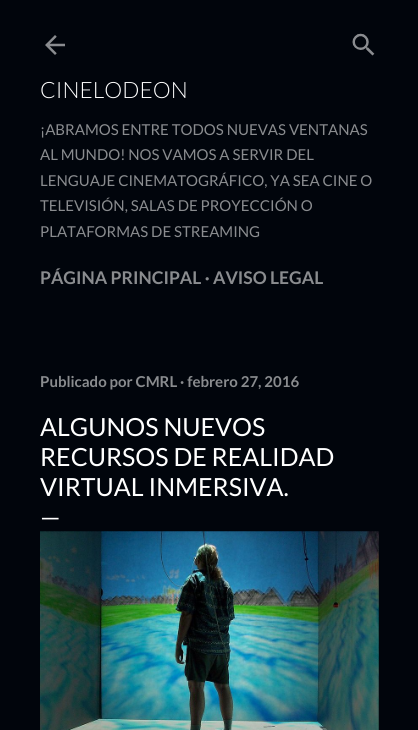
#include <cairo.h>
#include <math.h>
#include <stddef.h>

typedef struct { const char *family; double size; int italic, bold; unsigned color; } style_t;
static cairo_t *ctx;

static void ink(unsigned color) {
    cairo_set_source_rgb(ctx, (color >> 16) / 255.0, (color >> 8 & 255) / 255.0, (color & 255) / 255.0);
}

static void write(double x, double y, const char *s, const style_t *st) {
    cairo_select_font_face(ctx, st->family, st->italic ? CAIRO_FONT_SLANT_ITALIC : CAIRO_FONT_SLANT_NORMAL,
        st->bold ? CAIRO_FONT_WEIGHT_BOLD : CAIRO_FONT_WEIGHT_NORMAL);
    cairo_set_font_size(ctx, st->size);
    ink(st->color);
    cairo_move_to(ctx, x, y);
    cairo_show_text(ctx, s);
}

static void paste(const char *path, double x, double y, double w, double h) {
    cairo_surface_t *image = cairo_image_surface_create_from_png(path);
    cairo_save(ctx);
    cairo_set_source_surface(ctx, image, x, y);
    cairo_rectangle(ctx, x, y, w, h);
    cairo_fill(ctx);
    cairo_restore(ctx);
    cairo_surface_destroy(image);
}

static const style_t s1 = {"Lato Light", 22.5, 0, 0, 0xffffff};
static const style_t s2 = {"Lato", 15, 0, 0, 0x8a8c8f};
static const style_t s3 = {"Lato", 17.5, 0, 1, 0x8a8c8f};
static const style_t s4 = {"Lato", 15, 0, 1, 0x8a8c8f};
static const style_t s5 = {"Lato", 25, 0, 0, 0xffffff};

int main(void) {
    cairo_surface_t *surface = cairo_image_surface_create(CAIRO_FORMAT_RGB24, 418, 730);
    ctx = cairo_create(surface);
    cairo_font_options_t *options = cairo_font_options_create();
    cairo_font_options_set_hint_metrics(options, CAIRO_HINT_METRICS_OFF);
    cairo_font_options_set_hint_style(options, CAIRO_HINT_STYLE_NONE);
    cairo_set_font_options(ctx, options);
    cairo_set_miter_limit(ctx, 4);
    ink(0x01050c);
    cairo_paint(ctx);
    paste("pic1.png", 45, 35, 20, 20);
    paste("pic2.png", 352, 33, 23, 23);
    write(40, 98, "CINELODEON", &s1);
    write(40, 135, "¡ABRAMOS ENTRE TODOS NUEVAS VENTANAS", &s2);
    write(40, 160, "AL MUNDO! NOS VAMOS A SERVIR DEL", &s2);
    write(40, 186, "LENGUAJE CINEMATOGRÁFICO, YA SEA CINE O", &s2);
    write(40, 211, "TELEVISIÓN, SALAS DE PROYECCIÓN O", &s2);
    write(40, 237, "PLATAFORMAS DE STREAMING", &s2);
    write(40, 284, "PÁGINA PRINCIPAL · AVISO LEGAL", &s3);
    write(40, 387, "Publicado por CMRL · febrero 27, 2016", &s4);
    write(40, 436, "ALGUNOS NUEVOS", &s5);
    write(40, 466, "RECURSOS DE REALIDAD", &s5);
    write(40, 496, "VIRTUAL INMERSIVA.", &s5);
    write(40, 526, "—", &s5);
    paste("pic3.png", 40, 531, 339, 199);
    cairo_surface_write_to_png(surface, "screenshot.png");
    cairo_font_options_destroy(options);
    cairo_destroy(ctx);
    cairo_surface_destroy(surface);
    return 0;
}
